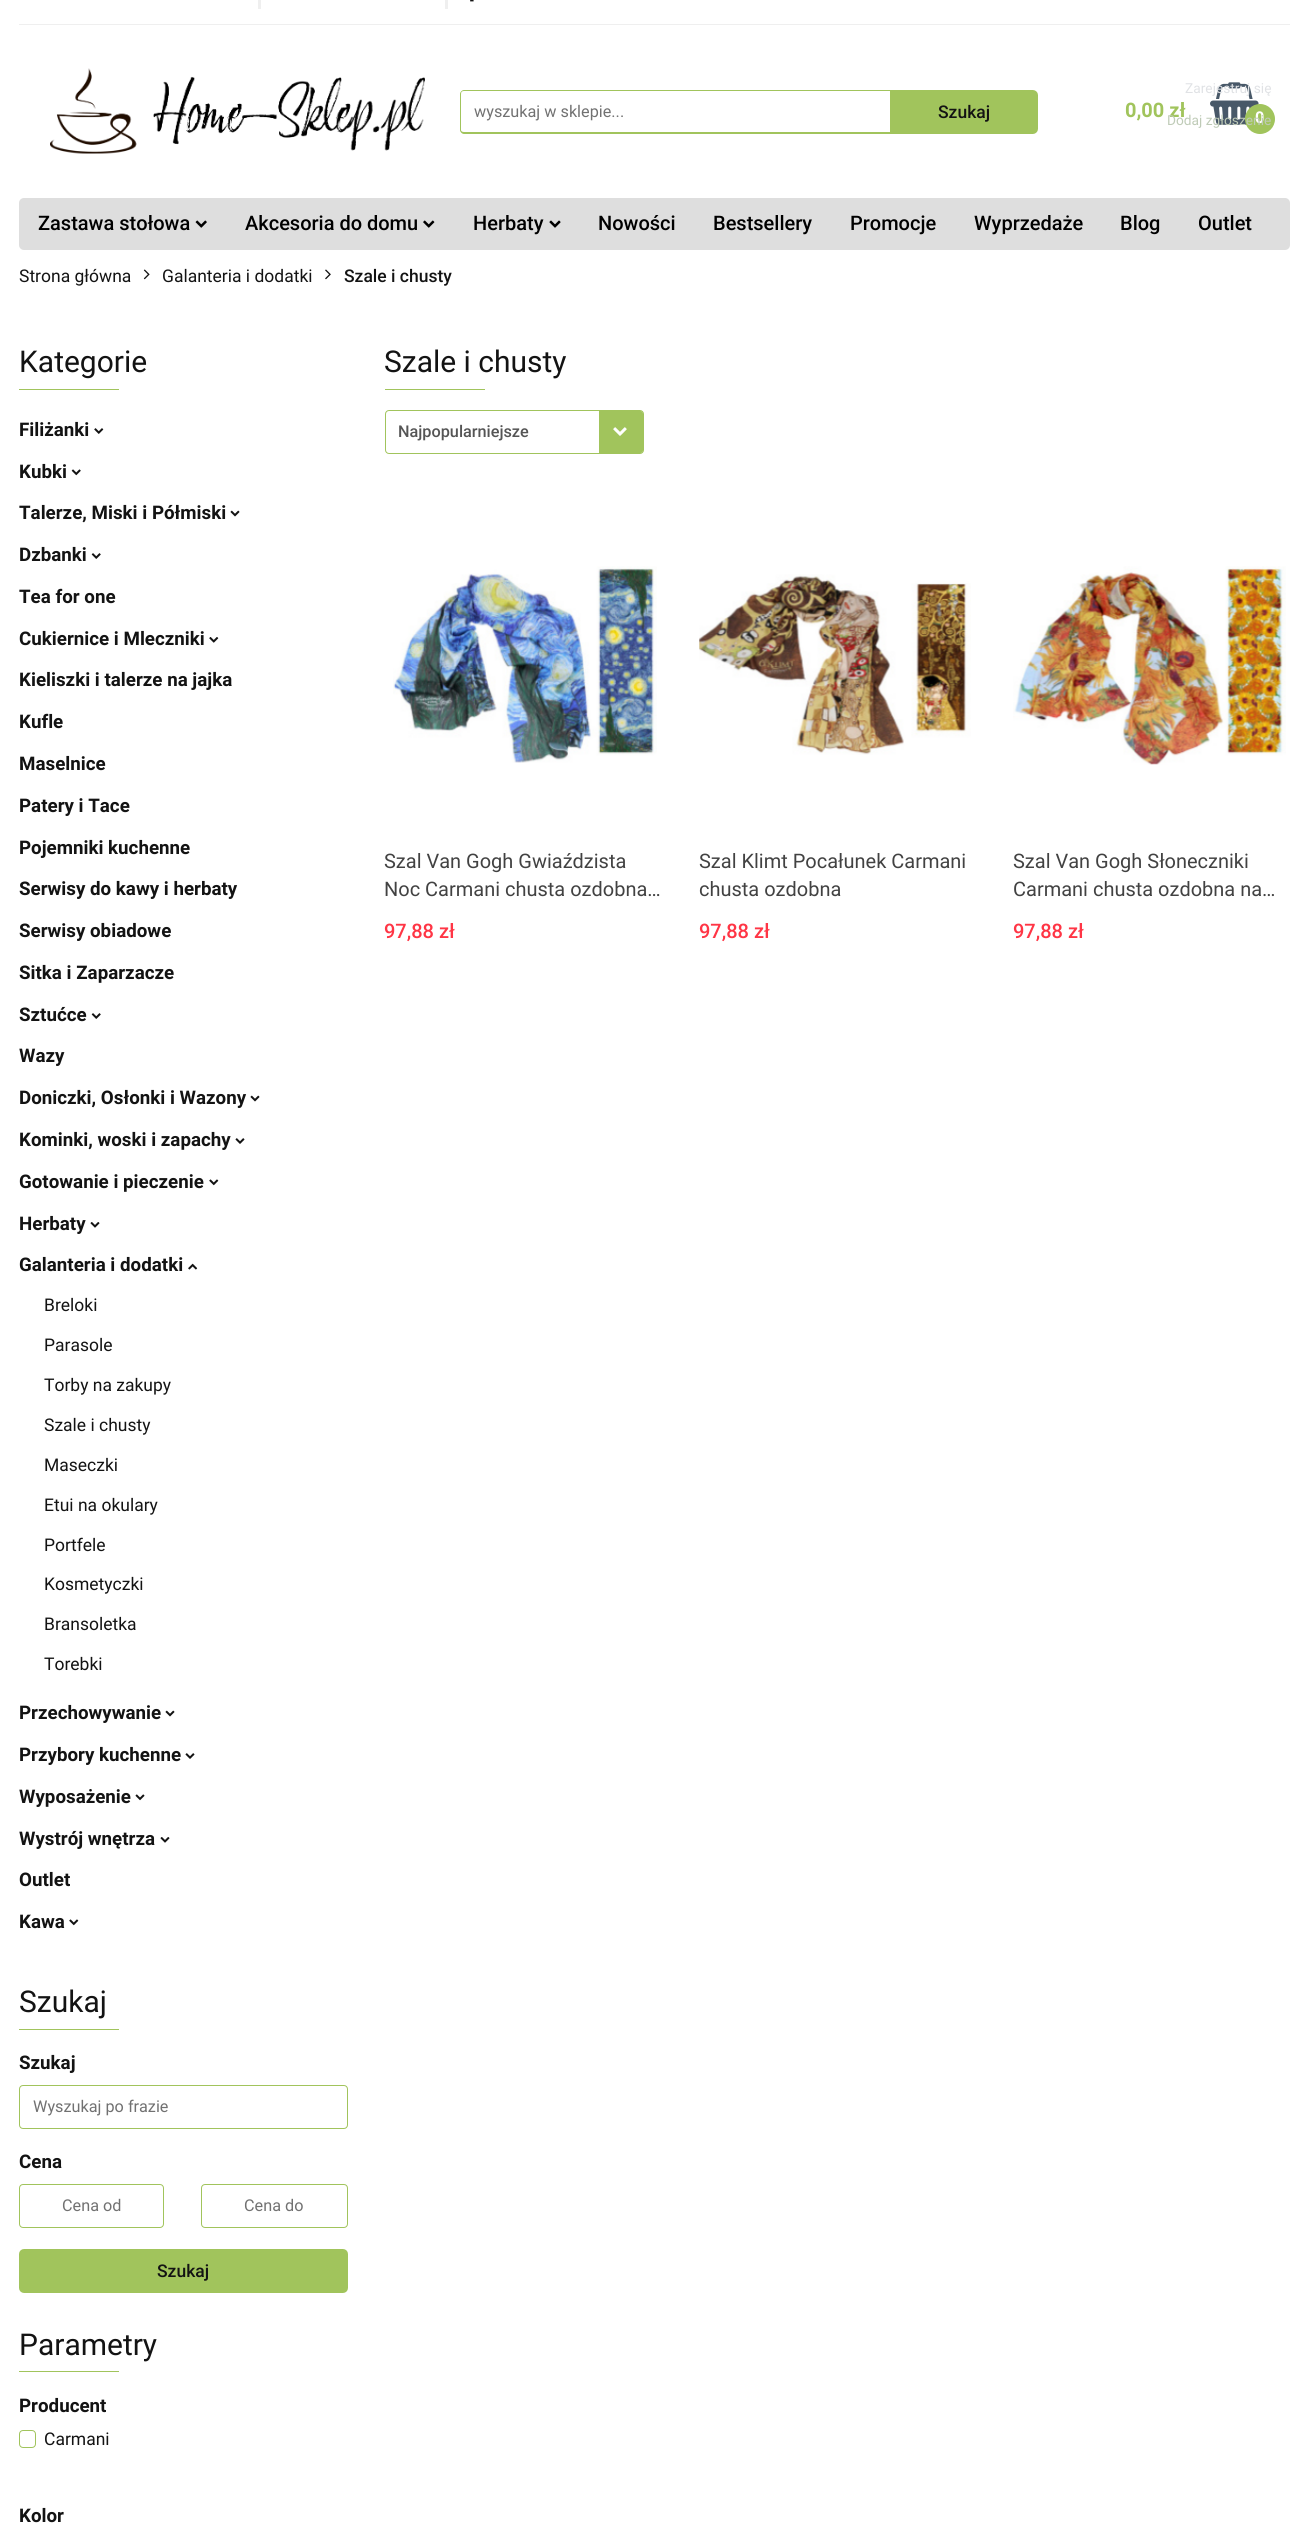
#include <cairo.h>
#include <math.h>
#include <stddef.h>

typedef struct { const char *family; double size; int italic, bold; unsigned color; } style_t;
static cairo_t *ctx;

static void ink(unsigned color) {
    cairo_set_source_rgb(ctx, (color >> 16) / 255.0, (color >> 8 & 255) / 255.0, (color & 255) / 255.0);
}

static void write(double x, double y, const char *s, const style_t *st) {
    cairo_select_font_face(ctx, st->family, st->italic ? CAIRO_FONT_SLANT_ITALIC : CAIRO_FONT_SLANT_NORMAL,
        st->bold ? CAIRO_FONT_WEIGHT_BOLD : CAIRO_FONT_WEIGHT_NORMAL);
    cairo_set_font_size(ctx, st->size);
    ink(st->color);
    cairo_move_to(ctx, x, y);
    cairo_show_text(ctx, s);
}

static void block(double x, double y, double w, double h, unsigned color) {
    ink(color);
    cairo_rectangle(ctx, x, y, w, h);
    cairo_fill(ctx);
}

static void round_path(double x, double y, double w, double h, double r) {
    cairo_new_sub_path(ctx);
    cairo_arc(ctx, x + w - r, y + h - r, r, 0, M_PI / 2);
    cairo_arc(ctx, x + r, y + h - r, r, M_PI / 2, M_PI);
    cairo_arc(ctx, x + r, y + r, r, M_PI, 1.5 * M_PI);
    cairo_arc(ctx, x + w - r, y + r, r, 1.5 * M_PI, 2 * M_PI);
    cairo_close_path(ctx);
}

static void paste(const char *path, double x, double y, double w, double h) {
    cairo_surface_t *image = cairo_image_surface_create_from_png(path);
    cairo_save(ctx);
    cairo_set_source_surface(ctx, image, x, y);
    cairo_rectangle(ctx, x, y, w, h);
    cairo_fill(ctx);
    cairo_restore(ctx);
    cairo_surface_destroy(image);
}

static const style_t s1 = {"Roboto", 13.75, 0, 0, 0xe0e2e5};
static const style_t s2 = {"Roboto", 20, 0, 1, 0xa1c45c};
static const style_t s3 = {"Roboto", 16.25, 0, 1, 0xffffff};
static const style_t s4 = {"Roboto", 13.75, 0, 0, 0xbfcbb7};
static const style_t s5 = {"Roboto", 16.25, 0, 0, 0x717171};
static const style_t s6 = {"Roboto Medium", 17.5, 0, 0, 0x131313};
static const style_t s7 = {"Roboto Medium", 20, 0, 0, 0x000000};
static const style_t s8 = {"Roboto", 17.5, 0, 0, 0x131313};
static const style_t s9 = {"Roboto", 30, 0, 0, 0x131313};
static const style_t s10 = {"Roboto", 18.75, 0, 1, 0x131313};
static const style_t s11 = {"Roboto Medium", 16.25, 0, 0, 0x555555};
static const style_t s12 = {"Roboto", 20, 0, 0, 0x424242};
static const style_t s13 = {"Roboto Medium", 20, 0, 0, 0xff3545};

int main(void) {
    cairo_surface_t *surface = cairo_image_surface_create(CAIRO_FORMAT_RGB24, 1308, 2536);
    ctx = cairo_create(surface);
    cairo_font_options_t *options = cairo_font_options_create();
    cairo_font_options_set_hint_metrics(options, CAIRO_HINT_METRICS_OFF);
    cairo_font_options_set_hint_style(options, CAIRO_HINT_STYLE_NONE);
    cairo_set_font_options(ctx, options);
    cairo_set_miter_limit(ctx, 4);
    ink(0xffffff);
    cairo_paint(ctx);
    block(19, 24, 1271, 1, 0xefefef);
    block(258, 0, 3, 9, 0xefefef);
    block(445, 0, 3, 9, 0xefefef);
    paste("pic1.png", 470, 0, 4, 2);
    paste("pic3.png", 1210, 82, 49, 43);
    write(1185, 93, "Zarejestruj się", &s1);
    write(1125, 117, "0,00 zł", &s2);
    cairo_new_path(ctx);
    cairo_arc(ctx, 1260, 119, 15, 0, 2 * M_PI);
    cairo_fill(ctx);
    write(1255, 123, "0", &s3);
    write(1167, 125, "Dodaj zgłoszenie", &s4);
    paste("pic2.png", 50, 68, 375, 86);
    ink(0xa1c45c);
    cairo_set_fill_rule(ctx, CAIRO_FILL_RULE_EVEN_ODD);
    cairo_new_path(ctx);
    cairo_move_to(ctx, 464, 90);
    cairo_line_to(ctx, 890, 90);
    cairo_line_to(ctx, 890, 134);
    cairo_line_to(ctx, 464, 134);
    cairo_curve_to(ctx, 462, 134, 460, 132, 460, 130);
    cairo_line_to(ctx, 460, 94);
    cairo_curve_to(ctx, 460, 92, 462, 90, 464, 90);
    cairo_close_path(ctx);
    cairo_move_to(ctx, 464, 91);
    cairo_line_to(ctx, 890, 91);
    cairo_line_to(ctx, 890, 132);
    cairo_line_to(ctx, 464, 132);
    cairo_curve_to(ctx, 462, 132, 461, 131, 461, 130);
    cairo_line_to(ctx, 461, 94);
    cairo_curve_to(ctx, 461, 92, 462, 91, 464, 91);
    cairo_close_path(ctx);
    cairo_fill(ctx);
    write(474, 117, "wyszukaj w sklepie...", &s5);
    ink(0xa1c45c);
    cairo_new_path(ctx);
    cairo_move_to(ctx, 892, 92);
    cairo_line_to(ctx, 1033, 92);
    cairo_curve_to(ctx, 1034.5, 92, 1036, 93.5, 1036, 95);
    cairo_line_to(ctx, 1036, 129);
    cairo_curve_to(ctx, 1036, 130.5, 1034.5, 132, 1033, 132);
    cairo_line_to(ctx, 892, 132);
    cairo_close_path(ctx);
    cairo_fill_preserve(ctx);
    cairo_set_line_width(ctx, 4);
    cairo_stroke(ctx);
    write(938, 118, "Szukaj", &s6);
    ink(0xdedede);
    round_path(19, 198, 1271, 52, 5);
    cairo_fill(ctx);
    write(38, 230, "Zastawa stołowa", &s7);
    paste("pic4.png", 195, 220, 12, 8);
    write(245, 230, "Akcesoria do domu", &s7);
    paste("pic5.png", 423, 220, 12, 8);
    write(473, 230, "Herbaty", &s7);
    paste("pic6.png", 549, 220, 12, 8);
    write(598, 230, "Nowości", &s7);
    write(713, 230, "Bestsellery", &s7);
    write(850, 230, "Promocje", &s7);
    write(974, 230, "Wyprzedaże", &s7);
    write(1120, 230, "Blog", &s7);
    write(1198, 230, "Outlet", &s7);
    write(19, 282, "Strona główna", &s8);
    paste("pic7.png", 143, 269, 7, 11);
    write(162, 282, "Galanteria i dodatki", &s8);
    paste("pic8.png", 325, 269, 6, 11);
    write(344, 282, "Szale i chusty", &s6);
    write(19, 372, "Kategorie", &s9);
    block(19, 389, 100, 1, 0xa1c45c);
    write(19, 436, "Filiżanki", &s10);
    paste("pic9.png", 94, 428, 10, 6);
    write(19, 478, "Kubki", &s10);
    paste("pic10.png", 71, 469, 10, 7);
    write(19, 519, "Talerze, Miski i Półmiski", &s10);
    paste("pic11.png", 230, 510, 10, 7);
    write(19, 561, "Dzbanki", &s10);
    paste("pic12.png", 91, 553, 10, 6);
    write(19, 603, "Tea for one", &s10);
    write(19, 645, "Cukiernice i Mleczniki", &s10);
    paste("pic13.png", 209, 637, 10, 6);
    write(19, 686, "Kieliszki i talerze na jajka", &s10);
    write(19, 728, "Kufle", &s10);
    write(19, 770, "Maselnice", &s10);
    write(19, 812, "Patery i Tace", &s10);
    write(19, 854, "Pojemniki kuchenne", &s10);
    write(19, 895, "Serwisy do kawy i herbaty", &s10);
    write(19, 937, "Serwisy obiadowe", &s10);
    write(19, 979, "Sitka i Zaparzacze", &s10);
    write(19, 1021, "Sztućce", &s10);
    paste("pic12.png", 91, 1013, 10, 6);
    write(19, 1062, "Wazy", &s10);
    write(19, 1104, "Doniczki, Osłonki i Wazony", &s10);
    paste("pic11.png", 250, 1095, 10, 7);
    write(19, 1146, "Kominki, woski i zapachy", &s10);
    paste("pic14.png", 235, 1138, 10, 6);
    write(19, 1188, "Gotowanie i pieczenie", &s10);
    paste("pic15.png", 209, 1179, 10, 7);
    write(19, 1230, "Herbaty", &s10);
    paste("pic16.png", 90, 1222, 10, 6);
    write(19, 1271, "Galanteria i dodatki", &s10);
    paste("pic17.png", 188, 1263, 10, 7);
    write(44, 1311, "Breloki", &s8);
    write(44, 1351, "Parasole", &s8);
    write(44, 1391, "Torby na zakupy", &s8);
    write(44, 1431, "Szale i chusty", &s8);
    write(44, 1471, "Maseczki", &s8);
    write(44, 1511, "Etui na okulary", &s8);
    write(44, 1551, "Portfele", &s8);
    write(44, 1590, "Kosmetyczki", &s8);
    write(44, 1630, "Bransoletka", &s8);
    write(44, 1670, "Torebki", &s8);
    write(19, 1719, "Przechowywanie", &s10);
    paste("pic11.png", 165, 1710, 10, 7);
    write(19, 1761, "Przybory kuchenne", &s10);
    paste("pic14.png", 185, 1753, 10, 6);
    write(19, 1803, "Wyposażenie", &s10);
    paste("pic18.png", 135, 1794, 10, 7);
    write(19, 1845, "Wystrój wnętrza", &s10);
    paste("pic16.png", 160, 1837, 10, 6);
    write(19, 1886, "Outlet", &s10);
    write(19, 1928, "Kawa", &s10);
    paste("pic15.png", 69, 1919, 10, 7);
    write(19, 2012, "Szukaj", &s9);
    block(19, 2029, 100, 1, 0xa1c45c);
    write(19, 2069, "Szukaj", &s10);
    round_path(19.5, 2085.5, 328, 43, 3.5);
    ink(0xa1c45c);
    cairo_set_line_width(ctx, 1);
    cairo_stroke(ctx);
    write(33, 2112, "Wyszukaj po frazie", &s5);
    write(19, 2168, "Cena", &s10);
    round_path(19.5, 2184.5, 144, 43, 3.5);
    ink(0xa1c45c);
    cairo_stroke(ctx);
    write(62, 2211, "Cena od", &s5);
    round_path(201.5, 2184.5, 146, 43, 3.5);
    ink(0xa1c45c);
    cairo_stroke(ctx);
    write(244, 2211, "Cena do", &s5);
    ink(0xa1c45c);
    round_path(21, 2251, 325, 40, 3);
    cairo_fill_preserve(ctx);
    cairo_set_line_width(ctx, 4);
    cairo_stroke(ctx);
    write(157, 2277, "Szukaj", &s6);
    write(19, 2355, "Parametry", &s9);
    block(19, 2371, 100, 1, 0xa1c45c);
    write(19, 2412, "Producent", &s10);
    round_path(19.5, 2430.5, 16, 17, 3.5);
    ink(0xa1c45c);
    cairo_set_line_width(ctx, 1);
    cairo_stroke(ctx);
    write(44, 2445, "Carmani", &s8);
    write(19, 2522, "Kolor", &s10);
    write(384, 372, "Szale i chusty", &s9);
    block(385, 389, 100, 1, 0xa1c45c);
    round_path(385.5, 410.5, 258, 43, 3.5);
    cairo_stroke(ctx);
    write(398, 437, "Najpopularniejsze", &s11);
    ink(0xa1c45c);
    cairo_new_path(ctx);
    cairo_move_to(ctx, 599, 411);
    cairo_line_to(ctx, 640.5, 411);
    cairo_curve_to(ctx, 642, 411, 643, 412, 643, 413.5);
    cairo_line_to(ctx, 643, 450.5);
    cairo_curve_to(ctx, 643, 452, 642, 453, 640.5, 453);
    cairo_line_to(ctx, 599, 453);
    cairo_close_path(ctx);
    cairo_fill(ctx);
    paste("pic19.png", 613, 427, 14, 9);
    paste("pic20.png", 393, 566, 264, 197);
    write(384, 868, "Szal Van Gogh Gwiaździsta", &s12);
    write(384, 896, "Noc Carmani chusta ozdobna…", &s12);
    write(384, 938, "97,88 zł", &s13);
    paste("pic21.png", 699, 574, 272, 181);
    write(699, 868, "Szal Klimt Pocałunek Carmani", &s12);
    write(699, 896, "chusta ozdobna", &s12);
    write(699, 938, "97,88 zł", &s13);
    paste("pic22.png", 1013, 566, 273, 199);
    write(1013, 868, "Szal Van Gogh Słoneczniki", &s12);
    write(1013, 896, "Carmani chusta ozdobna na…", &s12);
    write(1013, 938, "97,88 zł", &s13);
    cairo_surface_write_to_png(surface, "screenshot.png");
    cairo_font_options_destroy(options);
    cairo_destroy(ctx);
    cairo_surface_destroy(surface);
    return 0;
}
